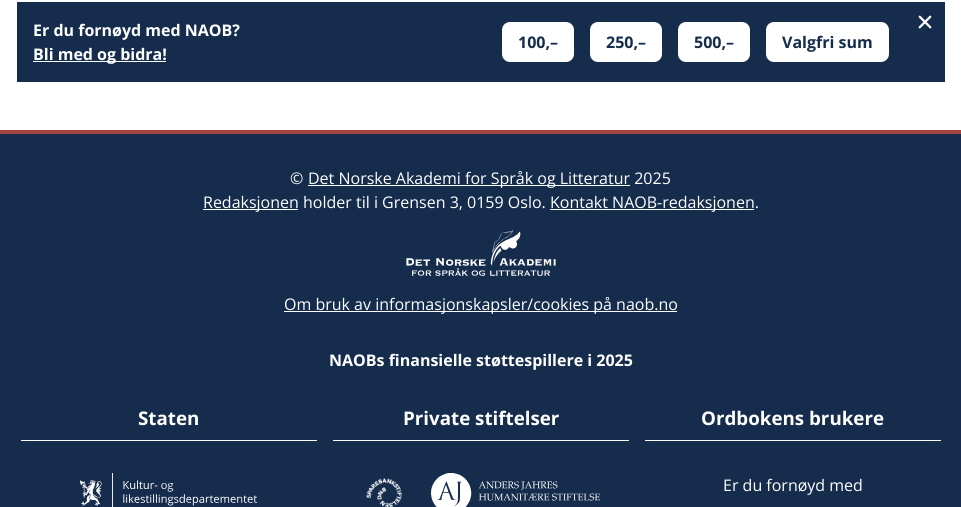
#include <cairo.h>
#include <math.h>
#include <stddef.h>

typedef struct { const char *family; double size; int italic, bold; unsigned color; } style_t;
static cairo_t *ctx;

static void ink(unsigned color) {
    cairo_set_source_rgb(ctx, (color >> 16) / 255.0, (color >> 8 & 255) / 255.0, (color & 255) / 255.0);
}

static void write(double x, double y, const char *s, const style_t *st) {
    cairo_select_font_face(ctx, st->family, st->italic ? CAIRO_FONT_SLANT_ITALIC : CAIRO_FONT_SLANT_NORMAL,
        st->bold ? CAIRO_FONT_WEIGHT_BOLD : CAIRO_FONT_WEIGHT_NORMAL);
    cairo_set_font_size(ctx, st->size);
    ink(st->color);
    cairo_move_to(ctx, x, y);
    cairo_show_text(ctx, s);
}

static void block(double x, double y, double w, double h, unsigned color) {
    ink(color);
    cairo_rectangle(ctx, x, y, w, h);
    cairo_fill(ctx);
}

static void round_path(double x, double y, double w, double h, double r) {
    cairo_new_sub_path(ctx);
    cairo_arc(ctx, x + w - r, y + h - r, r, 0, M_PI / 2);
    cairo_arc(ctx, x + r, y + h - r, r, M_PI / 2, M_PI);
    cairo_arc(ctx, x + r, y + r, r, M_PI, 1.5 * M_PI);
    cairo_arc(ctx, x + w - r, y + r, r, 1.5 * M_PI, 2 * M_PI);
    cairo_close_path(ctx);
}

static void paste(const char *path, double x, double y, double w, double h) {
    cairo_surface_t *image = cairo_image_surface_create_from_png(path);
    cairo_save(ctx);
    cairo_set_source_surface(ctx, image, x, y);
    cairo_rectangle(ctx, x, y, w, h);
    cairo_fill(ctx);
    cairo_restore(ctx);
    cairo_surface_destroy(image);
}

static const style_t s1 = {"Open Sans", 16, 0, 1, 0xffffff};
static const style_t s2 = {"Open Sans", 16, 0, 1, 0x152c4c};
static const style_t s3 = {"Open Sans", 16, 0, 0, 0xffffff};
static const style_t s4 = {"Open Sans", 18.75, 0, 1, 0xffffff};

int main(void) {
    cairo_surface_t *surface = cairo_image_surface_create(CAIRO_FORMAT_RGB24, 961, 507);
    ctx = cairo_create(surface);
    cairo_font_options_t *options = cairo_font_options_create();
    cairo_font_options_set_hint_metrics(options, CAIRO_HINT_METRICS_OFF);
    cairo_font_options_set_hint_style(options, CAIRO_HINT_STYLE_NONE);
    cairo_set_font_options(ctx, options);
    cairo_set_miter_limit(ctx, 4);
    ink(0xffffff);
    cairo_paint(ctx);
    block(17, 2, 928, 80, 0x152c4c);
    write(33, 36, "Er du fornøyd med NAOB?", &s1);
    block(33, 61, 133, 1, 0xffffff);
    write(33, 60, "Bli med og bidra!", &s1);
    round_path(502, 22, 72, 40, 8);
    cairo_fill(ctx);
    write(518, 48, "100,–", &s2);
    ink(0xffffff);
    round_path(590, 22, 72, 40, 8);
    cairo_fill(ctx);
    write(606, 48, "250,–", &s2);
    ink(0xffffff);
    round_path(678, 22, 72, 40, 8);
    cairo_fill(ctx);
    write(694, 48, "500,–", &s2);
    ink(0xffffff);
    round_path(766, 22, 123, 40, 8);
    cairo_fill(ctx);
    write(782, 48, "Valgfri sum", &s2);
    paste("pic1.png", 918, 15, 14, 14);
    block(0, 134, 961, 373, 0x152c4c);
    block(0, 130, 961, 4, 0xa54242);
    write(290, 184, "©", &s3);
    block(308, 185, 322, 1, 0xffffff);
    write(308, 184, "Det Norske Akademi for Språk og Litteratur 2025", &s3);
    block(203, 209, 95, 1, 0xffffff);
    write(203, 208, "Redaksjonen holder til i Grensen 3, 0159 Oslo.", &s3);
    block(550, 209, 204, 1, 0xffffff);
    write(550, 208, "Kontakt NAOB-redaksjonen.", &s3);
    paste("pic2.png", 406, 230, 150, 46);
    block(284, 311, 393, 1, 0xffffff);
    write(284, 310, "Om bruk av informasjonskapsler/cookies på naob.no", &s3);
    write(329, 366, "NAOBs finansielle støttespillere i 2025", &s1);
    block(21, 440, 296, 1, 0xffffff);
    write(138, 425, "Staten", &s4);
    paste("pic3.png", 80, 473, 177, 34);
    block(333, 440, 296, 1, 0xffffff);
    write(403, 425, "Private stiftelser", &s4);
    paste("pic4.png", 366, 478, 36, 29);
    paste("pic5.png", 431, 473, 169, 34);
    block(645, 440, 296, 1, 0xffffff);
    write(701, 425, "Ordbokens brukere", &s4);
    write(723, 491, "Er du fornøyd med", &s3);
    cairo_surface_write_to_png(surface, "screenshot.png");
    cairo_font_options_destroy(options);
    cairo_destroy(ctx);
    cairo_surface_destroy(surface);
    return 0;
}
